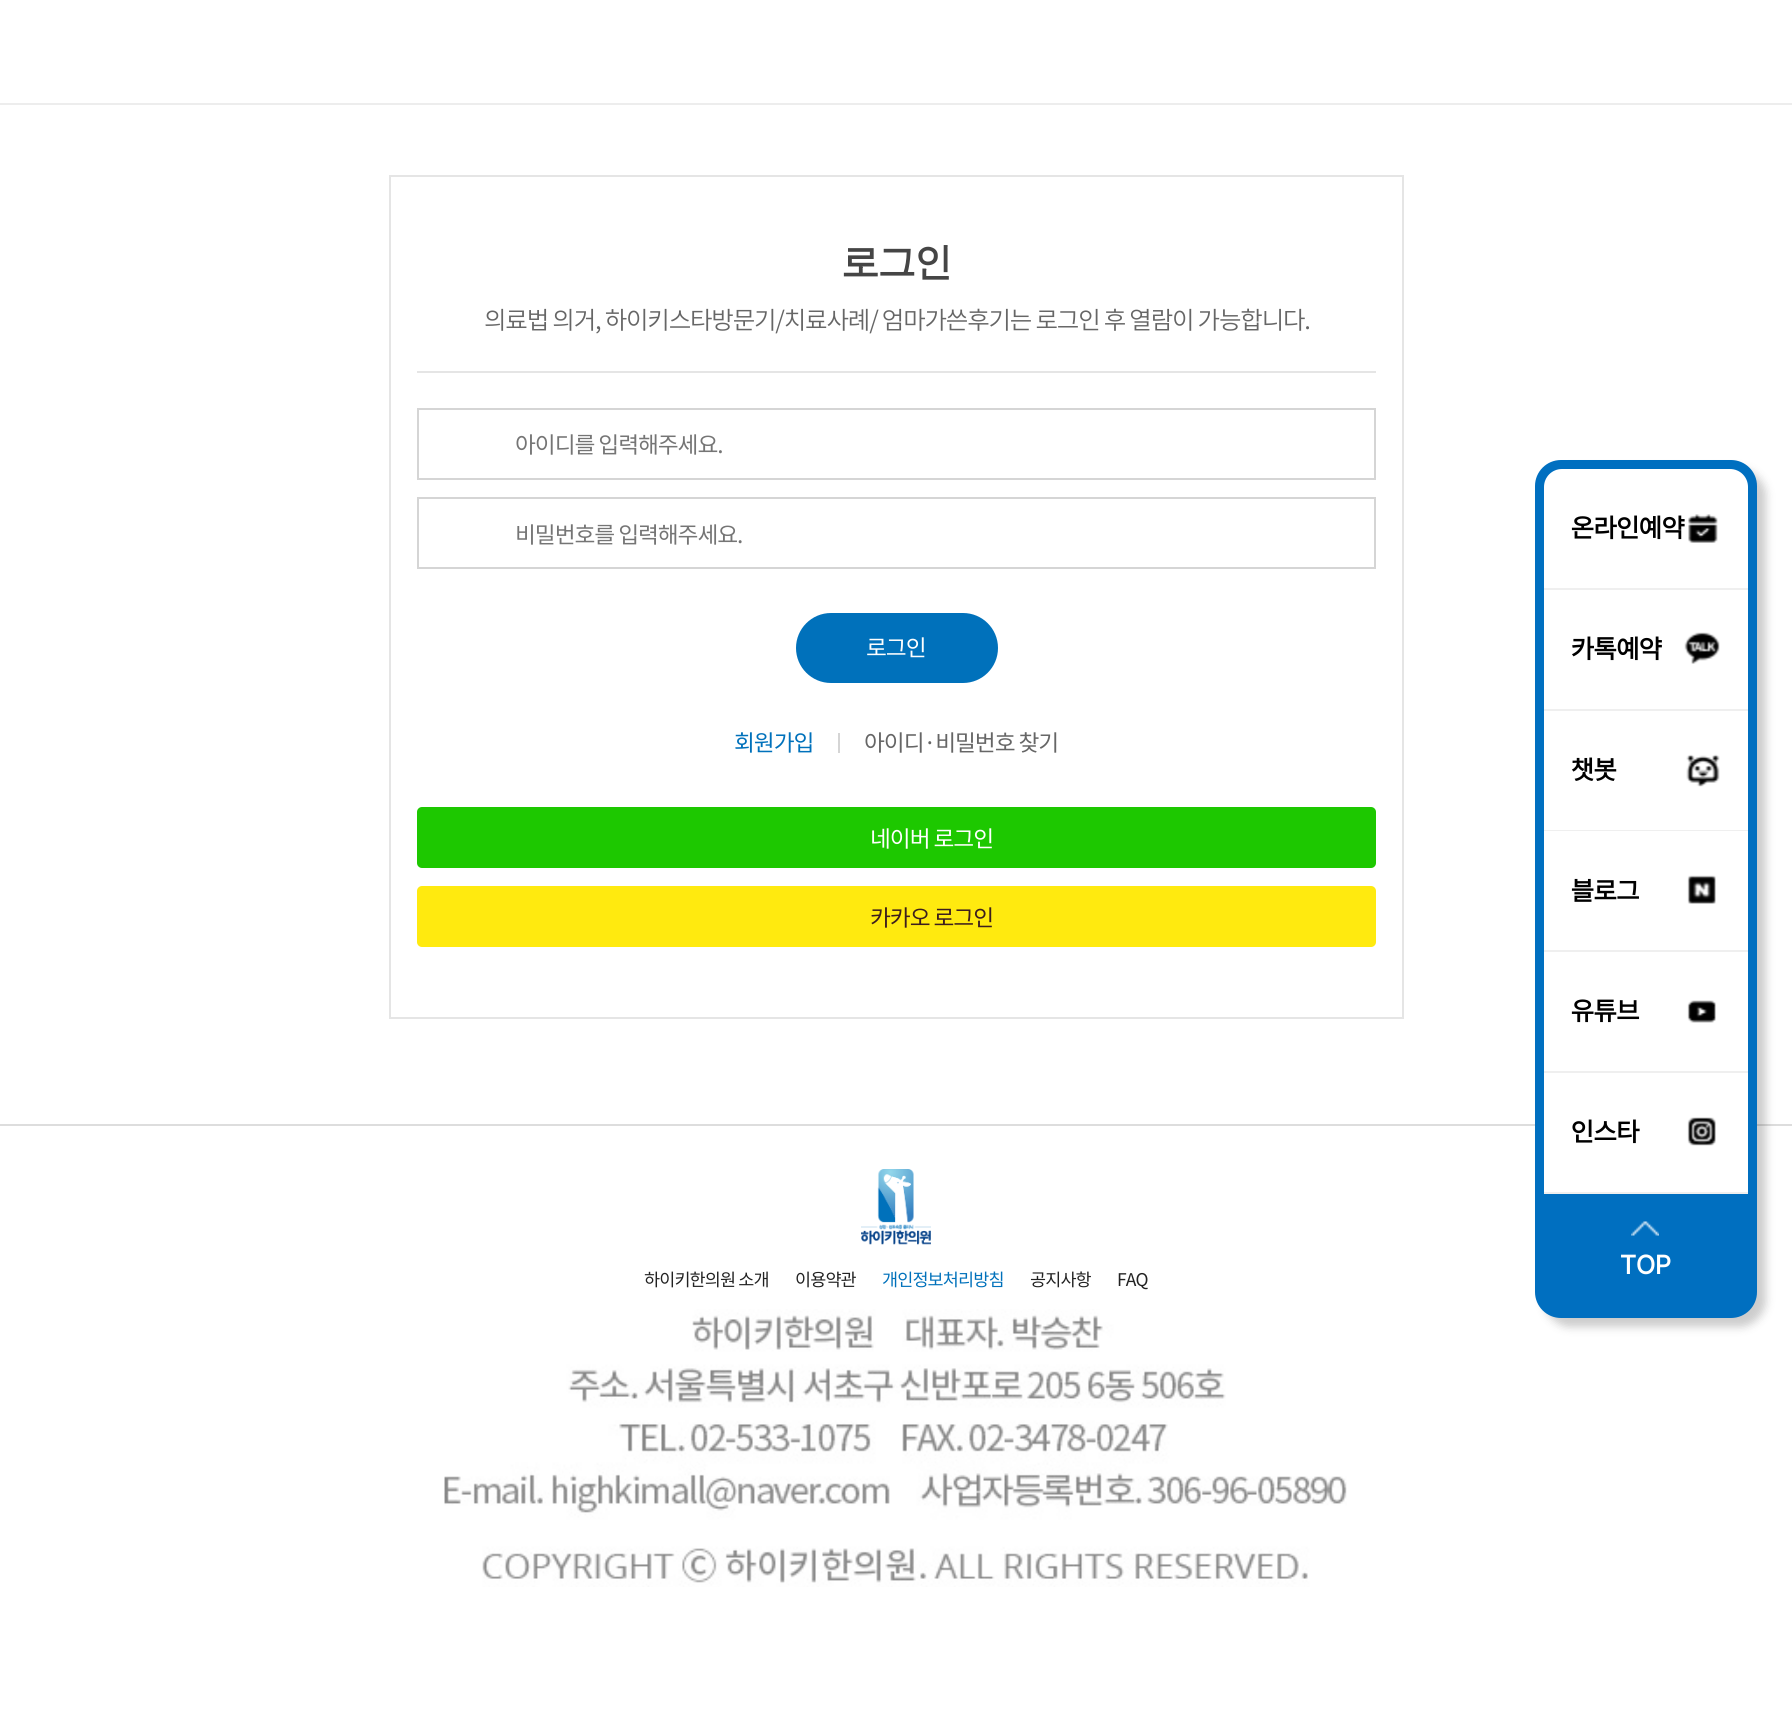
#include <cairo.h>
#include <math.h>
#include <stddef.h>

typedef struct { const char *family; double size; int italic, bold; unsigned color; } style_t;
static cairo_t *ctx;

static void ink(unsigned color) {
    cairo_set_source_rgb(ctx, (color >> 16) / 255.0, (color >> 8 & 255) / 255.0, (color & 255) / 255.0);
}

static void write(double x, double y, const char *s, const style_t *st) {
    cairo_select_font_face(ctx, st->family, st->italic ? CAIRO_FONT_SLANT_ITALIC : CAIRO_FONT_SLANT_NORMAL,
        st->bold ? CAIRO_FONT_WEIGHT_BOLD : CAIRO_FONT_WEIGHT_NORMAL);
    cairo_set_font_size(ctx, st->size);
    ink(st->color);
    cairo_move_to(ctx, x, y);
    cairo_show_text(ctx, s);
}

static void write_spaced(double x, double y, const char *s, double letter, double word) {
    cairo_move_to(ctx, x, y);
    while (*s) {
        char ch[5] = {0};
        int n = 0;
        do ch[n++] = *s++; while ((*s & 0xC0) == 0x80);
        cairo_show_text(ctx, ch);
        cairo_rel_move_to(ctx, letter + word * (*ch == ' '), 0);
    }
}

static void block(double x, double y, double w, double h, unsigned color) {
    ink(color);
    cairo_rectangle(ctx, x, y, w, h);
    cairo_fill(ctx);
}

static void round_path(double x, double y, double w, double h, double r) {
    cairo_new_sub_path(ctx);
    cairo_arc(ctx, x + w - r, y + h - r, r, 0, M_PI / 2);
    cairo_arc(ctx, x + r, y + h - r, r, M_PI / 2, M_PI);
    cairo_arc(ctx, x + r, y + r, r, M_PI, 1.5 * M_PI);
    cairo_arc(ctx, x + w - r, y + r, r, 1.5 * M_PI, 2 * M_PI);
    cairo_close_path(ctx);
}

static void blur_box(double x, double y, double w, double h, double r, double blur, double alpha) {
    cairo_push_group_with_content(ctx, CAIRO_CONTENT_ALPHA);
    cairo_set_operator(ctx, CAIRO_OPERATOR_SOURCE);
    for (int i = 15; i >= -15 && fmin(w, h) + blur * i / 3 > 0; i -= 2) {
        double e = blur * i / 6;
        cairo_set_source_rgba(ctx, 0, 0, 0, alpha * erfc((i - 1) / 8.5) / 2);
        round_path(x - e, y - e, w + 2 * e, h + 2 * e, fmax(0, fmin(r + e + blur * .6, fmin(w, h) / 2 + e)));
        cairo_fill(ctx);
    }
    cairo_pattern_t *soft = cairo_pop_group(ctx);
    cairo_mask(ctx, soft);
    cairo_pattern_destroy(soft);
}

static void paste(const char *path, double x, double y, double w, double h) {
    cairo_surface_t *image = cairo_image_surface_create_from_png(path);
    cairo_save(ctx);
    cairo_set_source_surface(ctx, image, x, y);
    cairo_rectangle(ctx, x, y, w, h);
    cairo_fill(ctx);
    cairo_restore(ctx);
    cairo_surface_destroy(image);
}

static const style_t s1 = {"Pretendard", 26.25, 0, 1, 0x000000};
static const style_t s2 = {"Pretendard", 26.25, 0, 1, 0xffffff};

int main(void) {
    cairo_surface_t *surface = cairo_image_surface_create(CAIRO_FORMAT_RGB24, 1792, 1725);
    ctx = cairo_create(surface);
    cairo_font_options_t *options = cairo_font_options_create();
    cairo_font_options_set_hint_metrics(options, CAIRO_HINT_METRICS_OFF);
    cairo_font_options_set_hint_style(options, CAIRO_HINT_STYLE_NONE);
    cairo_set_font_options(ctx, options);
    cairo_set_miter_limit(ctx, 4);
    ink(0xffffff);
    cairo_paint(ctx);
    cairo_rectangle(ctx, 390, 176, 1013, 842);
    ink(0xe5e5e5);
    cairo_stroke(ctx);
    block(417, 371, 959, 2, 0xe5e5e5);
    cairo_select_font_face(ctx, "WenQuanYi Zen Hei", CAIRO_FONT_SLANT_NORMAL, CAIRO_FONT_WEIGHT_BOLD);
    cairo_set_font_size(ctx, 38.5);
    ink(0x454545);
    write_spaced(841, 275, "로그인", -2, 0);
    cairo_select_font_face(ctx, "Noto Sans KR Light", CAIRO_FONT_SLANT_NORMAL, CAIRO_FONT_WEIGHT_NORMAL);
    cairo_set_font_size(ctx, 24.5);
    ink(0x666666);
    write_spaced(484, 329, "의료법 의거, 하이키스타방문기/치료사례/ 엄마가쓴후기는 로그인 후 열람이 가능합니다.", -1.2, 0);
    cairo_rectangle(ctx, 418, 409, 957, 70);
    ink(0xd5d5d5);
    cairo_stroke(ctx);
    cairo_select_font_face(ctx, "Noto Sans KR", CAIRO_FONT_SLANT_NORMAL, CAIRO_FONT_WEIGHT_NORMAL);
    cairo_set_font_size(ctx, 22.75);
    ink(0x757575);
    write_spaced(515, 453, "아이디를 입력해주세요.", -1.1, 0);
    cairo_rectangle(ctx, 418, 498, 957, 70);
    ink(0xd5d5d5);
    cairo_stroke(ctx);
    ink(0x757575);
    write_spaced(515, 543, "비밀번호를 입력해주세요.", -1.1, 0);
    ink(0x0071bb);
    round_path(796, 613, 202, 70, 35);
    cairo_fill(ctx);
    ink(0xffffff);
    write_spaced(866, 656, "로그인", -1.1, 0);
    ink(0x0071bb);
    write_spaced(734, 751, "회원가입", -1.1, 0);
    block(838, 733, 2, 20, 0xd5d5d5);
    ink(0x666666);
    write_spaced(864, 751, "아이디·비밀번호 찾기", -1.1, 0);
    ink(0x1dc800);
    round_path(417, 807, 959, 61, 5);
    cairo_fill(ctx);
    ink(0xffffff);
    write_spaced(870, 847, "네이버 로그인", -1.1, 0);
    ink(0xffea0f);
    round_path(417, 886, 959, 61, 5);
    cairo_fill(ctx);
    ink(0x3c1e1e);
    write_spaced(870, 926, "카카오 로그인", -1.1, 0);
    block(0, 103, 1792, 2, 0xededed);
    block(0, 1124, 1792, 2, 0xdddddd);
    ink(0x000000);
    blur_box(1544, 469, 222, 858, 26, 4.5, 0.2);
    ink(0x006fc0);
    round_path(1535, 460, 222, 858, 26);
    cairo_fill(ctx);
    ink(0xffffff);
    cairo_new_path(ctx);
    cairo_move_to(ctx, 1562, 469);
    cairo_line_to(ctx, 1730, 469);
    cairo_curve_to(ctx, 1740, 469, 1748, 477, 1748, 487);
    cairo_line_to(ctx, 1748, 590);
    cairo_line_to(ctx, 1544, 590);
    cairo_line_to(ctx, 1544, 487);
    cairo_curve_to(ctx, 1544, 477, 1552, 469, 1562, 469);
    cairo_close_path(ctx);
    cairo_fill(ctx);
    block(1544, 588, 204, 2, 0xefefef);
    write(1571, 537, "온라인예약", &s1);
    paste("pic1.png", 1688, 514, 30, 29);
    block(1544, 590, 204, 119, 0xffffff);
    block(1544, 709, 204, 2, 0xefefef);
    write(1571, 658, "카톡예약", &s1);
    paste("pic2.png", 1684, 632, 36, 32);
    block(1544, 711, 204, 119, 0xffffff);
    block(1544, 830, 204, 1, 0xefefef);
    write(1571, 779, "챗봇", &s1);
    paste("pic3.png", 1686, 754, 34, 33);
    block(1544, 831, 204, 119, 0xffffff);
    block(1544, 950, 204, 2, 0xefefef);
    write(1571, 900, "블로그", &s1);
    paste("pic4.png", 1687, 875, 29, 29);
    block(1544, 952, 204, 119, 0xffffff);
    block(1544, 1071, 204, 2, 0xefefef);
    write(1571, 1020, "유튜브", &s1);
    paste("pic5.png", 1687, 1000, 29, 23);
    block(1544, 1073, 204, 119, 0xffffff);
    block(1544, 1192, 204, 2, 0xefefef);
    write(1571, 1141, "인스타", &s1);
    paste("pic6.png", 1687, 1117, 29, 29);
    paste("pic7.png", 1631, 1221, 28, 15);
    write(1620, 1274, "TOP", &s2);
    paste("pic8.png", 861, 1169, 70, 76);
    cairo_select_font_face(ctx, "Noto Sans KR", CAIRO_FONT_SLANT_NORMAL, CAIRO_FONT_WEIGHT_NORMAL);
    cairo_set_font_size(ctx, 17.5);
    ink(0x222222);
    write_spaced(644, 1286, "하이키한의원 소개", -0.9, 0);
    write_spaced(795, 1286, "이용약관", -0.9, 0);
    ink(0x0071bb);
    write_spaced(882, 1286, "개인정보처리방침", -0.9, 0);
    ink(0x222222);
    write_spaced(1030, 1286, "공지사항", -0.9, 0);
    write_spaced(1117, 1286, "FAQ", -0.9, 0);
    paste("pic9.png", 444, 1309, 903, 278);
    cairo_surface_write_to_png(surface, "screenshot.png");
    cairo_font_options_destroy(options);
    cairo_destroy(ctx);
    cairo_surface_destroy(surface);
    return 0;
}
